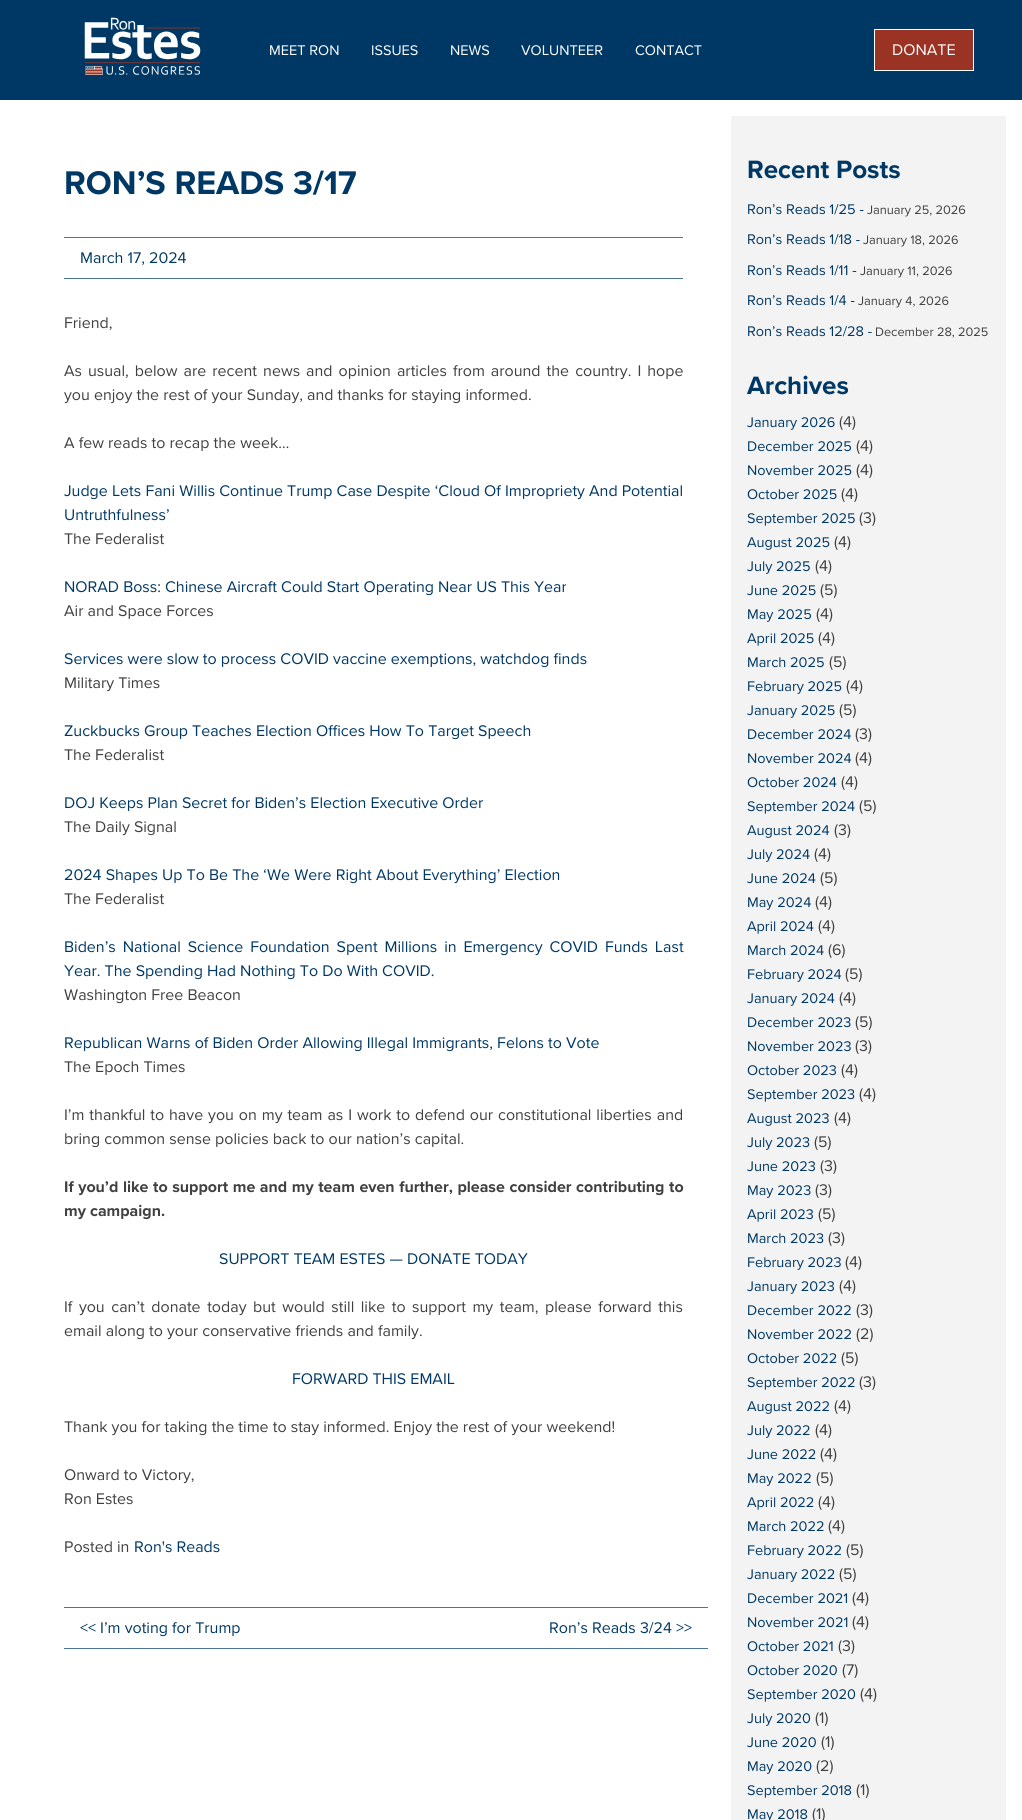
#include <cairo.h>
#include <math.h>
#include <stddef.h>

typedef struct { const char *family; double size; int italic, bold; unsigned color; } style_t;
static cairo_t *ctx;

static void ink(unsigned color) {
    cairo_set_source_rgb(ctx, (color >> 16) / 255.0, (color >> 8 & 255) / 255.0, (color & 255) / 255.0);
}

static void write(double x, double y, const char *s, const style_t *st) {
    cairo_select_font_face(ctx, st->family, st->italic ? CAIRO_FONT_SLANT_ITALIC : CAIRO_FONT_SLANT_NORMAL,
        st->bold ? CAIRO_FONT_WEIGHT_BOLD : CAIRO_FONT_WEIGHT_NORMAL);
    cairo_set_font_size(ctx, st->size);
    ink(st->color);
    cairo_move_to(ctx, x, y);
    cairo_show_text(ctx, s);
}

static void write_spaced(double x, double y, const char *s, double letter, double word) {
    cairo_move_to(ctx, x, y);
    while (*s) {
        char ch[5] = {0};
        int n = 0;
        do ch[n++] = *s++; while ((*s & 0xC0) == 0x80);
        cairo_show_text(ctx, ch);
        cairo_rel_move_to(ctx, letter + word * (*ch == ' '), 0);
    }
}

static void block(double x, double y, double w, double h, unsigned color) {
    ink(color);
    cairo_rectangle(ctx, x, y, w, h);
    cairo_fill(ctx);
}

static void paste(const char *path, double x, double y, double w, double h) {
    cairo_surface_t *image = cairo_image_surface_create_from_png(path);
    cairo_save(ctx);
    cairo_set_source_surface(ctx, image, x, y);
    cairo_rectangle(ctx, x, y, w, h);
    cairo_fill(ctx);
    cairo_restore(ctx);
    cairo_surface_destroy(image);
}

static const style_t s1 = {"Proxima Nova", 14.5, 0, 0, 0xffffff};
static const style_t s2 = {"Proxima Nova", 16, 0, 0, 0xffffff};
static const style_t s3 = {"Proxima Nova", 34, 0, 1, 0x003865};
static const style_t s4 = {"Proxima Nova", 16, 0, 0, 0x003865};
static const style_t s5 = {"Proxima Nova", 16, 0, 0, 0x404040};
static const style_t s6 = {"Proxima Nova", 16, 0, 1, 0x404040};
static const style_t s7 = {"Proxima Nova", 26, 0, 1, 0x003865};
static const style_t s8 = {"Proxima Nova", 14.5, 0, 0, 0x003865};
static const style_t s9 = {"Proxima Nova", 12.75, 0, 0, 0x404040};

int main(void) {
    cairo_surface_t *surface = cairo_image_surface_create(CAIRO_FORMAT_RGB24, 1022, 1820);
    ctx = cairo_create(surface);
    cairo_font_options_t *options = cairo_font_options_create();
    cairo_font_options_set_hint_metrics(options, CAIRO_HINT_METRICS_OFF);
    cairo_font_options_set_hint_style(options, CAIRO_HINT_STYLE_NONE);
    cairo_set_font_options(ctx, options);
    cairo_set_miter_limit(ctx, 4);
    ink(0xffffff);
    cairo_paint(ctx);
    block(0, 0, 1022, 100, 0x003865);
    paste("pic1.png", 84, 17, 117, 58);
    write(269, 55, "MEET RON", &s1);
    write(371, 55, "ISSUES", &s1);
    write(450, 55, "NEWS", &s1);
    write(521, 55, "VOLUNTEER", &s1);
    write(635, 55, "CONTACT", &s1);
    ink(0x9a3324);
    cairo_rectangle(ctx, 874.5, 29.5, 99, 41);
    cairo_fill_preserve(ctx);
    ink(0xffffff);
    cairo_set_line_width(ctx, 1);
    cairo_stroke(ctx);
    write(892, 55, "DONATE", &s2);
    write(64, 194, "RON’S READS 3/17", &s3);
    block(64, 237, 619, 1, 0x4d7493);
    block(64, 278, 619, 1, 0x4d7493);
    write(80, 263, "March 17, 2024", &s4);
    write(64, 328, "Friend,", &s5);
    write_spaced(64, 376, "As usual, below are recent news and opinion articles from around the country. I hope", 0, 1.9);
    write(64, 400, "you enjoy the rest of your Sunday, and thanks for staying informed.", &s5);
    write(64, 448, "A few reads to recap the week…", &s5);
    write(64, 496, "Judge Lets Fani Willis Continue Trump Case Despite ‘Cloud Of Impropriety And Potential", &s4);
    write(64, 520, "Untruthfulness’", &s4);
    write(64, 544, "The Federalist", &s5);
    write(64, 592, "NORAD Boss: Chinese Aircraft Could Start Operating Near US This Year", &s4);
    write(64, 616, "Air and Space Forces", &s5);
    write(64, 664, "Services were slow to process COVID vaccine exemptions, watchdog finds", &s4);
    write(64, 688, "Military Times", &s5);
    write(64, 736, "Zuckbucks Group Teaches Election Offices How To Target Speech", &s4);
    write(64, 760, "The Federalist", &s5);
    write(64, 808, "DOJ Keeps Plan Secret for Biden’s Election Executive Order", &s4);
    write(64, 832, "The Daily Signal", &s5);
    write(64, 880, "2024 Shapes Up To Be The ‘We Were Right About Everything’ Election", &s4);
    write(64, 904, "The Federalist", &s5);
    ink(0x003865);
    write_spaced(64, 952, "Biden’s National Science Foundation Spent Millions in Emergency COVID Funds Last", 0, 2.75);
    write(64, 976, "Year. The Spending Had Nothing To Do With COVID.", &s4);
    write(64, 1000, "Washington Free Beacon", &s5);
    write(64, 1048, "Republican Warns of Biden Order Allowing Illegal Immigrants, Felons to Vote", &s4);
    write(64, 1072, "The Epoch Times", &s5);
    write_spaced(64, 1120, "I’m thankful to have you on my team as I work to defend our constitutional liberties and", 0, 0.8);
    write(64, 1144, "bring common sense policies back to our nation’s capital.", &s5);
    cairo_select_font_face(ctx, "Proxima Nova", CAIRO_FONT_SLANT_NORMAL, CAIRO_FONT_WEIGHT_BOLD);
    write_spaced(64, 1192, "If you’d like to support me and my team even further, please consider contributing to", 0, 0.5);
    write(64, 1216, "my campaign.", &s6);
    write(219, 1264, "SUPPORT TEAM ESTES — DONATE TODAY", &s4);
    ink(0x404040);
    write_spaced(64, 1312, "If you can’t donate today but would still like to support my team, please forward this", 0, 2.4);
    write(64, 1336, "email along to your conservative friends and family.", &s5);
    write(292, 1384, "FORWARD THIS EMAIL", &s4);
    write(64, 1432, "Thank you for taking the time to stay informed. Enjoy the rest of your weekend!", &s5);
    write(64, 1480, "Onward to Victory,", &s5);
    write(64, 1504, "Ron Estes", &s5);
    write(64, 1552, "Posted in", &s5);
    write(134, 1552, "Ron's Reads", &s4);
    block(64, 1607, 644, 1, 0x4d7493);
    block(64, 1648, 644, 1, 0x4d7493);
    write(80, 1633, "<< I’m voting for Trump", &s4);
    write(549, 1633, "Ron’s Reads 3/24 >>", &s4);
    block(731, 116, 275, 1704, 0xf3f3f3);
    write(747, 178, "Recent Posts", &s7);
    write(747, 214, "Ron’s Reads 1/25 -", &s8);
    write(867, 214, "January 25, 2026", &s9);
    write(747, 244, "Ron’s Reads 1/18 -", &s8);
    write(863, 244, "January 18, 2026", &s9);
    write(747, 275, "Ron’s Reads 1/11 -", &s8);
    write(860, 275, "January 11, 2026", &s9);
    write(747, 305, "Ron’s Reads 1/4 -", &s8);
    write(858, 305, "January 4, 2026", &s9);
    write(747, 336, "Ron’s Reads 12/28 -", &s8);
    write(875, 336, "December 28, 2025", &s9);
    write(747, 394, "Archives", &s7);
    write(747, 427, "January 2026", &s8);
    write(839, 427, "(4)", &s5);
    write(747, 451, "December 2025", &s8);
    write(856, 451, "(4)", &s5);
    write(747, 475, "November 2025", &s8);
    write(856, 475, "(4)", &s5);
    write(747, 499, "October 2025", &s8);
    write(841, 499, "(4)", &s5);
    write(747, 523, "September 2025", &s8);
    write(859, 523, "(3)", &s5);
    write(747, 547, "August 2025", &s8);
    write(834, 547, "(4)", &s5);
    write(747, 571, "July 2025", &s8);
    write(815, 571, "(4)", &s5);
    write(747, 595, "June 2025", &s8);
    write(820, 595, "(5)", &s5);
    write(747, 619, "May 2025", &s8);
    write(816, 619, "(4)", &s5);
    write(747, 643, "April 2025", &s8);
    write(818, 643, "(4)", &s5);
    write(747, 667, "March 2025", &s8);
    write(829, 667, "(5)", &s5);
    write(747, 691, "February 2025", &s8);
    write(846, 691, "(4)", &s5);
    write(747, 715, "January 2025", &s8);
    write(839, 715, "(5)", &s5);
    write(747, 739, "December 2024", &s8);
    write(855, 739, "(3)", &s5);
    write(747, 763, "November 2024", &s8);
    write(855, 763, "(4)", &s5);
    write(747, 787, "October 2024", &s8);
    write(841, 787, "(4)", &s5);
    write(747, 811, "September 2024", &s8);
    write(859, 811, "(5)", &s5);
    write(747, 835, "August 2024", &s8);
    write(834, 835, "(3)", &s5);
    write(747, 859, "July 2024", &s8);
    write(814, 859, "(4)", &s5);
    write(747, 883, "June 2024", &s8);
    write(820, 883, "(5)", &s5);
    write(747, 907, "May 2024", &s8);
    write(815, 907, "(4)", &s5);
    write(747, 931, "April 2024", &s8);
    write(818, 931, "(4)", &s5);
    write(747, 955, "March 2024", &s8);
    write(828, 955, "(6)", &s5);
    write(747, 979, "February 2024", &s8);
    write(845, 979, "(5)", &s5);
    write(747, 1003, "January 2024", &s8);
    write(839, 1003, "(4)", &s5);
    write(747, 1027, "December 2023", &s8);
    write(855, 1027, "(5)", &s5);
    write(747, 1051, "November 2023", &s8);
    write(855, 1051, "(3)", &s5);
    write(747, 1075, "October 2023", &s8);
    write(841, 1075, "(4)", &s5);
    write(747, 1099, "September 2023", &s8);
    write(859, 1099, "(4)", &s5);
    write(747, 1123, "August 2023", &s8);
    write(834, 1123, "(4)", &s5);
    write(747, 1147, "July 2023", &s8);
    write(814, 1147, "(5)", &s5);
    write(747, 1171, "June 2023", &s8);
    write(820, 1171, "(3)", &s5);
    write(747, 1195, "May 2023", &s8);
    write(815, 1195, "(3)", &s5);
    write(747, 1219, "April 2023", &s8);
    write(818, 1219, "(5)", &s5);
    write(747, 1243, "March 2023", &s8);
    write(828, 1243, "(3)", &s5);
    write(747, 1267, "February 2023", &s8);
    write(845, 1267, "(4)", &s5);
    write(747, 1291, "January 2023", &s8);
    write(839, 1291, "(4)", &s5);
    write(747, 1315, "December 2022", &s8);
    write(856, 1315, "(3)", &s5);
    write(747, 1339, "November 2022", &s8);
    write(856, 1339, "(2)", &s5);
    write(747, 1363, "October 2022", &s8);
    write(841, 1363, "(5)", &s5);
    write(747, 1387, "September 2022", &s8);
    write(859, 1387, "(3)", &s5);
    write(747, 1411, "August 2022", &s8);
    write(834, 1411, "(4)", &s5);
    write(747, 1435, "July 2022", &s8);
    write(815, 1435, "(4)", &s5);
    write(747, 1459, "June 2022", &s8);
    write(820, 1459, "(4)", &s5);
    write(747, 1483, "May 2022", &s8);
    write(816, 1483, "(5)", &s5);
    write(747, 1507, "April 2022", &s8);
    write(818, 1507, "(4)", &s5);
    write(747, 1531, "March 2022", &s8);
    write(828, 1531, "(4)", &s5);
    write(747, 1555, "February 2022", &s8);
    write(846, 1555, "(5)", &s5);
    write(747, 1579, "January 2022", &s8);
    write(839, 1579, "(5)", &s5);
    write(747, 1603, "December 2021", &s8);
    write(852, 1603, "(4)", &s5);
    write(747, 1627, "November 2021", &s8);
    write(852, 1627, "(4)", &s5);
    write(747, 1651, "October 2021", &s8);
    write(838, 1651, "(3)", &s5);
    write(747, 1675, "October 2020", &s8);
    write(842, 1675, "(7)", &s5);
    write(747, 1699, "September 2020", &s8);
    write(860, 1699, "(4)", &s5);
    write(747, 1723, "July 2020", &s8);
    write(815, 1723, "(1)", &s5);
    write(747, 1747, "June 2020", &s8);
    write(821, 1747, "(1)", &s5);
    write(747, 1771, "May 2020", &s8);
    write(816, 1771, "(2)", &s5);
    write(747, 1795, "September 2018", &s8);
    write(856, 1795, "(1)", &s5);
    write(747, 1819, "May 2018", &s8);
    write(812, 1819, "(1)", &s5);
    cairo_surface_write_to_png(surface, "screenshot.png");
    cairo_font_options_destroy(options);
    cairo_destroy(ctx);
    cairo_surface_destroy(surface);
    return 0;
}
